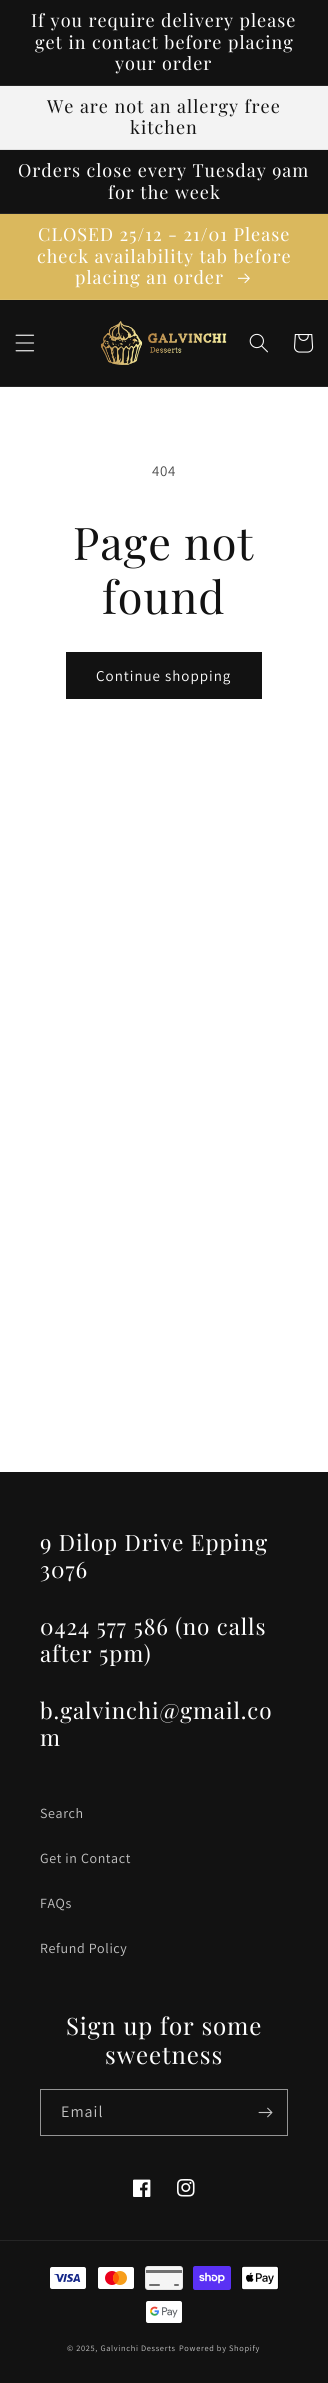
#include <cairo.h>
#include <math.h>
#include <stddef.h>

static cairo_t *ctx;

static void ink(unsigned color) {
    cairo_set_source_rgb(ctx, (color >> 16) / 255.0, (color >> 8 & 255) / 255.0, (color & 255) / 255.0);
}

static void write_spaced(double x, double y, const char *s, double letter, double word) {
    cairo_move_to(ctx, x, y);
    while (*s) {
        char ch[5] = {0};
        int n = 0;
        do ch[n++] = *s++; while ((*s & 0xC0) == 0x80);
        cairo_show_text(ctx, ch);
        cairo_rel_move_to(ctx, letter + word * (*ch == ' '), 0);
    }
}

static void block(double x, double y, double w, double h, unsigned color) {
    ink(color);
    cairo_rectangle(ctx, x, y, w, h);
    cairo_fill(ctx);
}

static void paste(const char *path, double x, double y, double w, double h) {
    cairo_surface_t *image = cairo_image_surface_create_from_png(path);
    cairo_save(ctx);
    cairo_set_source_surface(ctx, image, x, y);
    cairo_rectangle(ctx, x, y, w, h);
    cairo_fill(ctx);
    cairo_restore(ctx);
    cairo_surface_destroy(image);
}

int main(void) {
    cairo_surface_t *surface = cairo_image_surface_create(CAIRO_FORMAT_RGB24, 328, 2383);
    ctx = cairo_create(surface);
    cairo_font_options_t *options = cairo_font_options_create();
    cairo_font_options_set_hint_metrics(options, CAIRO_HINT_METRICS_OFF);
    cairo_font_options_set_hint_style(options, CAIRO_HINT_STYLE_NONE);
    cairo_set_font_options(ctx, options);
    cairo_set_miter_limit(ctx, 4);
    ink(0xffffff);
    cairo_paint(ctx);
    block(0, 0, 328, 85, 0x121212);
    block(0, 85, 328, 1, 0x252525);
    cairo_select_font_face(ctx, "Playfair Display", CAIRO_FONT_SLANT_NORMAL, CAIRO_FONT_WEIGHT_NORMAL);
    cairo_set_font_size(ctx, 18);
    ink(0xffffff);
    write_spaced(31, 27, "If you require delivery please", 1, 0);
    write_spaced(35, 49, "get in contact before placing", 1, 0);
    write_spaced(115, 70, "your order", 1, 0);
    block(0, 86, 328, 63, 0xf3f3f3);
    block(0, 149, 328, 1, 0xe1e1e1);
    ink(0x121212);
    write_spaced(47, 113, "We are not an allergy free", 1, 0);
    write_spaced(130, 134, "kitchen", 1, 0);
    block(0, 150, 328, 63, 0x121212);
    block(0, 213, 328, 1, 0x252525);
    ink(0xffffff);
    write_spaced(18, 177, "Orders close every Tuesday 9am", 1, 0);
    write_spaced(108, 199, "for the week", 1, 0);
    block(0, 214, 328, 85, 0xdab85d);
    block(0, 299, 328, 1, 0xddbe6a);
    ink(0xffffff);
    write_spaced(38, 241, "CLOSED 25/12 - 21/01 Please", 1, 0);
    write_spaced(37, 263, "check availability tab before", 1, 0);
    write_spaced(75, 284, "placing an order", 1, 0);
    paste("pic1.png", 238, 273, 12, 11);
    block(0, 300, 328, 86, 0x121212);
    block(0, 386, 328, 1, 0x252525);
    paste("pic2.png", 15, 334, 20, 18);
    paste("pic3.png", 100, 321, 127, 44);
    paste("pic4.png", 249, 333, 19, 20);
    paste("pic5.png", 294, 334, 20, 19);
    cairo_select_font_face(ctx, "Assistant", CAIRO_FONT_SLANT_NORMAL, CAIRO_FONT_WEIGHT_NORMAL);
    cairo_set_font_size(ctx, 15);
    ink(0x4d4d4d);
    write_spaced(152, 476, "404", 0.6, 0);
    cairo_select_font_face(ctx, "Playfair Display", CAIRO_FONT_SLANT_NORMAL, CAIRO_FONT_WEIGHT_NORMAL);
    cairo_set_font_size(ctx, 45);
    ink(0x121212);
    write_spaced(73, 560, "Page not", 0.9, 0);
    write_spaced(102, 614, "found", 0.9, 0);
    block(66, 652, 196, 47, 0x121212);
    cairo_select_font_face(ctx, "Assistant", CAIRO_FONT_SLANT_NORMAL, CAIRO_FONT_WEIGHT_NORMAL);
    cairo_set_font_size(ctx, 15);
    ink(0xffffff);
    write_spaced(96, 681, "Continue shopping", 1, 0);
    block(0, 1472, 328, 911, 0x121212);
    cairo_select_font_face(ctx, "Playfair Display", CAIRO_FONT_SLANT_NORMAL, CAIRO_FONT_WEIGHT_NORMAL);
    cairo_set_font_size(ctx, 22.5);
    ink(0xffffff);
    write_spaced(40, 1551, "9 Dilop Drive Epping", 0.9, 0);
    write_spaced(40, 1578, "3076", 0.9, 0);
    write_spaced(40, 1635, "0424 577 586 (no calls", 0.9, 0);
    write_spaced(40, 1662, "after 5pm)", 0.9, 0);
    write_spaced(40, 1719, "b.galvinchi@gmail.co", 0.9, 0);
    write_spaced(40, 1746, "m", 0.9, 0);
    cairo_select_font_face(ctx, "Assistant", CAIRO_FONT_SLANT_NORMAL, CAIRO_FONT_WEIGHT_NORMAL);
    cairo_set_font_size(ctx, 14);
    ink(0xc4c4c4);
    write_spaced(40, 1818, "Search", 0.6, 0);
    write_spaced(40, 1863, "Get in Contact", 0.6, 0);
    write_spaced(40, 1908, "FAQs", 0.6, 0);
    write_spaced(40, 1953, "Refund Policy", 0.6, 0);
    cairo_select_font_face(ctx, "Playfair Display", CAIRO_FONT_SLANT_NORMAL, CAIRO_FONT_WEIGHT_NORMAL);
    cairo_set_font_size(ctx, 24);
    ink(0xffffff);
    write_spaced(66, 2035, "Sign up for some", 0.9, 0);
    write_spaced(105, 2064, "sweetness", 0.9, 0);
    cairo_rectangle(ctx, 40.5, 2089.5, 247, 46);
    ink(0x949494);
    cairo_set_line_width(ctx, 1);
    cairo_stroke(ctx);
    cairo_select_font_face(ctx, "Assistant", CAIRO_FONT_SLANT_NORMAL, CAIRO_FONT_WEIGHT_NORMAL);
    cairo_set_font_size(ctx, 16);
    ink(0xc4c4c4);
    write_spaced(61, 2117, "Email", 1, 0);
    paste("pic6.png", 258, 2107, 15, 11);
    paste("pic7.png", 133, 2179, 18, 18);
    paste("pic8.png", 177, 2179, 18, 18);
    block(0, 2240, 328, 1, 0x252525);
    paste("pic9.png", 50, 2267, 36, 22);
    paste("pic10.png", 98, 2267, 36, 22);
    paste("pic11.png", 145, 2266, 38, 24);
    paste("pic12.png", 193, 2266, 38, 24);
    paste("pic13.png", 241, 2266, 38, 24);
    paste("pic14.png", 146, 2301, 36, 22);
    cairo_set_font_size(ctx, 8.3);
    ink(0xc4c4c4);
    write_spaced(67, 2351, "© 2025, Galvinchi Desserts", 0.7, 0);
    write_spaced(179, 2351, "Powered by Shopify", 0.7, 0);
    cairo_surface_write_to_png(surface, "screenshot.png");
    cairo_font_options_destroy(options);
    cairo_destroy(ctx);
    cairo_surface_destroy(surface);
    return 0;
}
